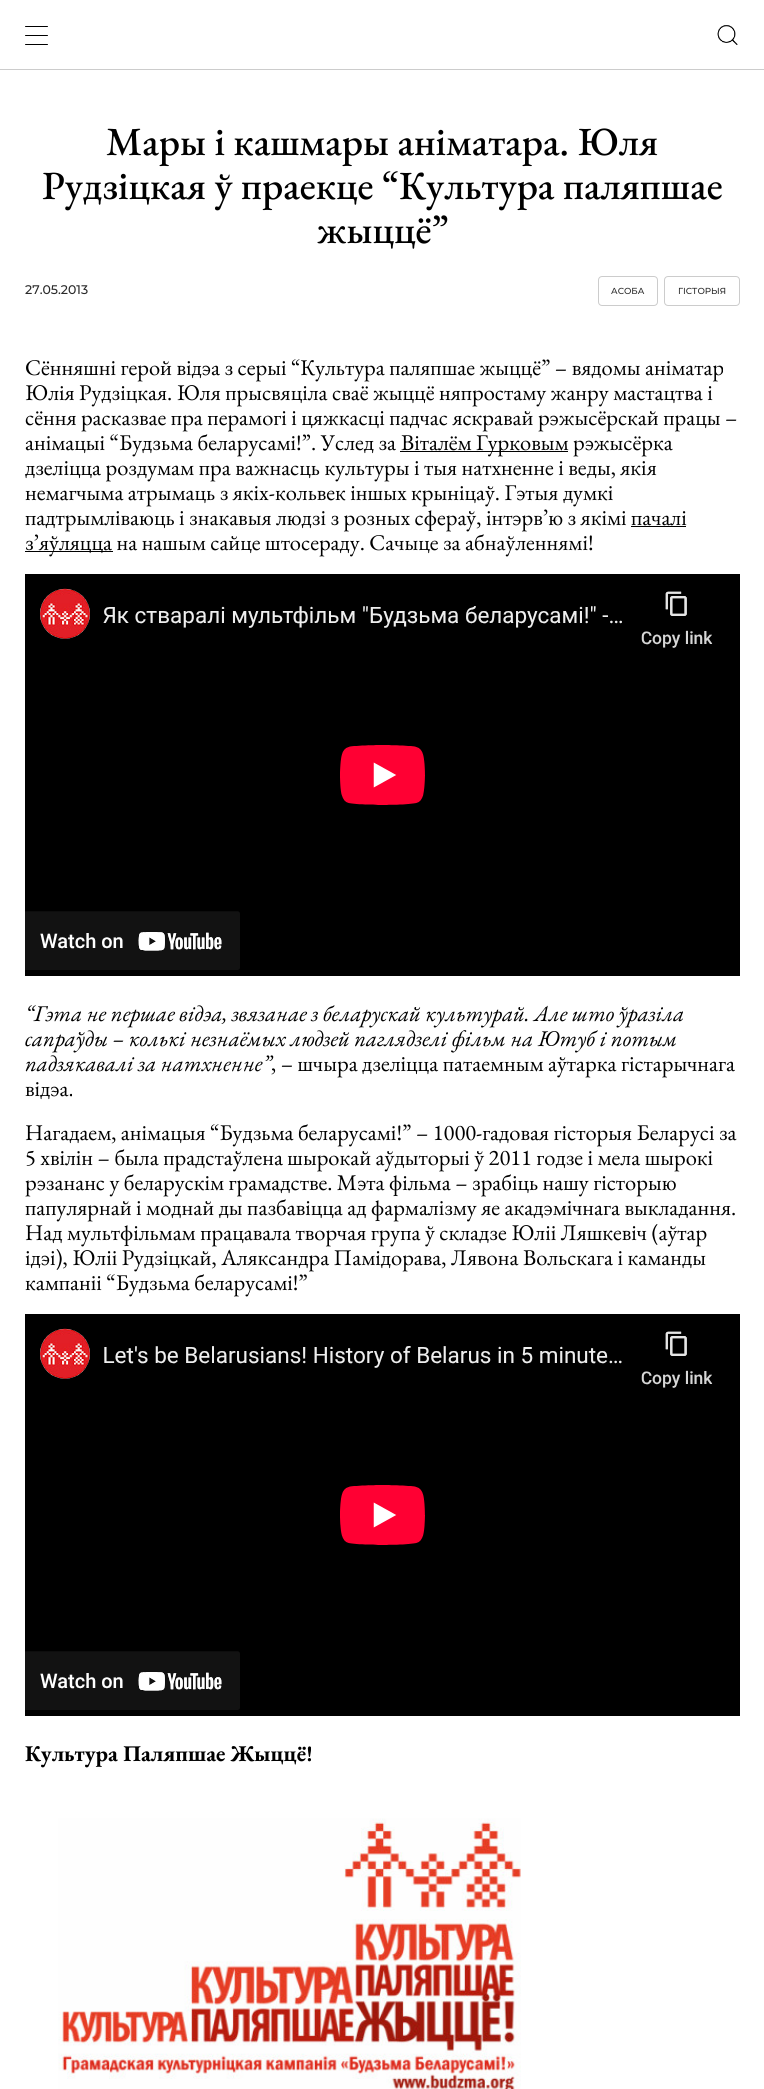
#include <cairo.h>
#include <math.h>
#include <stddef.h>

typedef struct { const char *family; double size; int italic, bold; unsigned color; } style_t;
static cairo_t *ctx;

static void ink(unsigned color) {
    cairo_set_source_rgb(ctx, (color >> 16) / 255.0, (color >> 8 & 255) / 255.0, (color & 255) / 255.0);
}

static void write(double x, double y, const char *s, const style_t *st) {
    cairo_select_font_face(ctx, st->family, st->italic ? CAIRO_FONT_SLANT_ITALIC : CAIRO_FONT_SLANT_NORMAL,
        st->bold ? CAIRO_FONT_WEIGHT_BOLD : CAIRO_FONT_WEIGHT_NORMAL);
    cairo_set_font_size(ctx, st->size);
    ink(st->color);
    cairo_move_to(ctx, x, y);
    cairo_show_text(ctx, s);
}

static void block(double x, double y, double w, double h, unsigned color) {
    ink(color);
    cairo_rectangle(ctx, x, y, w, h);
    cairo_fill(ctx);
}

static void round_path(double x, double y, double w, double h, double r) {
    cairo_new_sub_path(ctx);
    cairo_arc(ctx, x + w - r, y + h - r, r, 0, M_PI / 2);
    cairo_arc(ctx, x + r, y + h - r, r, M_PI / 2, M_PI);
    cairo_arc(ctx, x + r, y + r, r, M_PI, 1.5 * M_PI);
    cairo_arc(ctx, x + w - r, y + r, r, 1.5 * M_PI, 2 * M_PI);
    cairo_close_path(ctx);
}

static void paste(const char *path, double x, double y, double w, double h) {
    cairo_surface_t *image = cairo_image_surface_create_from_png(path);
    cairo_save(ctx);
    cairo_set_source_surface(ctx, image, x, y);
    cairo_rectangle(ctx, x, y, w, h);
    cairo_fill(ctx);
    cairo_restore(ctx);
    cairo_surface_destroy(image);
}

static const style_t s1 = {"EB Garamond Medium", 40, 0, 0, 0x000000};
static const style_t s2 = {"Montserrat Medium", 12.5, 0, 0, 0x2a2a2a};
static const style_t s3 = {"Montserrat Medium", 8.75, 0, 0, 0x2a2a2a};
static const style_t s4 = {"EB Garamond", 22.5, 0, 0, 0x000000};
static const style_t s5 = {"EB Garamond", 22.5, 1, 0, 0x000000};
static const style_t s6 = {"EB Garamond", 22.5, 0, 1, 0x000000};

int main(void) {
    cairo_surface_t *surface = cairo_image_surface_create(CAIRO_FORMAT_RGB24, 764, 2089);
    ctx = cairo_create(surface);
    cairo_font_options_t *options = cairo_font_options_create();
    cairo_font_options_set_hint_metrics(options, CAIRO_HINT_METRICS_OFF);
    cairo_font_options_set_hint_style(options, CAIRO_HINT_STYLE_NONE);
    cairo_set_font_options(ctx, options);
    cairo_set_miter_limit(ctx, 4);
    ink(0xffffff);
    cairo_paint(ctx);
    block(0, 69, 764, 1, 0xcccccc);
    ink(0x000000);
    round_path(25, 26, 23, 1, 0.5);
    cairo_fill(ctx);
    round_path(25, 35, 23, 1, 0.5);
    cairo_fill(ctx);
    round_path(25, 44, 23, 1, 0.5);
    cairo_fill(ctx);
    paste("pic1.png", 717, 25, 21, 20);
    write(106, 155, "Мары і кашмары аніматара. Юля", &s1);
    write(42, 199, "Рудзіцкая ў праекце “Культура паляпшае", &s1);
    write(317, 243, "жыццё”", &s1);
    write(25, 294, "27.05.2013", &s2);
    round_path(598.5, 276.5, 59, 29, 3.5);
    ink(0xcccccc);
    cairo_set_line_width(ctx, 1);
    cairo_stroke(ctx);
    write(611, 294, "АСОБА", &s3);
    round_path(664.5, 276.5, 75, 29, 3.5);
    ink(0xcccccc);
    cairo_stroke(ctx);
    write(678, 294, "ГІСТОРЫЯ", &s3);
    write(25, 375, "Сённяшні герой відэа з серыі “Культура паляпшае жыццё” – вядомы аніматар", &s4);
    write(25, 400, "Юлія Рудзіцкая. Юля прысвяціла сваё жыццё няпростаму жанру мастацтва і", &s4);
    write(25, 425, "сёння расказвае пра перамогі і цяжкасці падчас яскравай рэжысёрскай працы –", &s4);
    write(25, 450, "анімацыі “Будзьма беларусамі!”. Услед за", &s4);
    block(400, 451, 168, 1, 0x000000);
    write(401, 450, "Віталём Гурковым рэжысёрка", &s4);
    write(25, 475, "дзеліцца роздумам пра важнасць культуры і тыя натхненне і веды, якія", &s4);
    write(25, 500, "немагчыма атрымаць з якіх-кольвек іншых крыніцаў. Гэтыя думкі", &s4);
    write(25, 525, "падтрымліваюць і знакавыя людзі з розных сфераў, інтэрв’ю з якімі пачалі", &s4);
    block(25, 551, 88, 1, 0x000000);
    write(25, 550, "з’яўляцца на нашым сайце штосераду. Сачыце за абнаўленнямі!", &s4);
    block(631, 526, 55, 1, 0x000000);
    paste("pic2.png", 25, 574, 715, 402);
    write(25, 1021, "“Гэта не першае відэа, звязанае з беларускай культурай. Але што ўразіла", &s5);
    write(25, 1046, "сапраўды – колькі незнаёмых людзей паглядзелі фільм на Ютуб і потым", &s5);
    write(25, 1071, "падзякавалі за натхненне”", &s5);
    write(271, 1071, ", – шчыра дзеліцца патаемным аўтарка гістарычнага", &s4);
    write(25, 1096, "відэа.", &s4);
    write(25, 1140, "Нагадаем, анімацыя “Будзьма беларусамі!” – 1000-гадовая гісторыя Беларусі за", &s4);
    write(25, 1165, "5 хвілін – была прадстаўлена шырокай аўдыторыі ў 2011 годзе і мела шырокі", &s4);
    write(25, 1190, "рэзананс у беларускім грамадстве. Мэта фільма – зрабіць нашу гісторыю", &s4);
    write(25, 1215, "папулярнай і моднай ды пазбавіцца ад фармалізму яе акадэмічнага выкладання.", &s4);
    write(25, 1240, "Над мультфільмам працавала творчая група ў складзе Юліі Ляшкевіч (аўтар", &s4);
    write(25, 1265, "ідэі), Юліі Рудзіцкай, Аляксандра Памідорава, Лявона Вольскага і каманды", &s4);
    write(25, 1290, "кампаніі “Будзьма беларусамі!”", &s4);
    paste("pic3.png", 25, 1314, 715, 402);
    write(25, 1761, "Культура Паляпшае Жыццё!", &s6);
    paste("pic4.png", 58, 1818, 463, 271);
    cairo_surface_write_to_png(surface, "screenshot.png");
    cairo_font_options_destroy(options);
    cairo_destroy(ctx);
    cairo_surface_destroy(surface);
    return 0;
}
